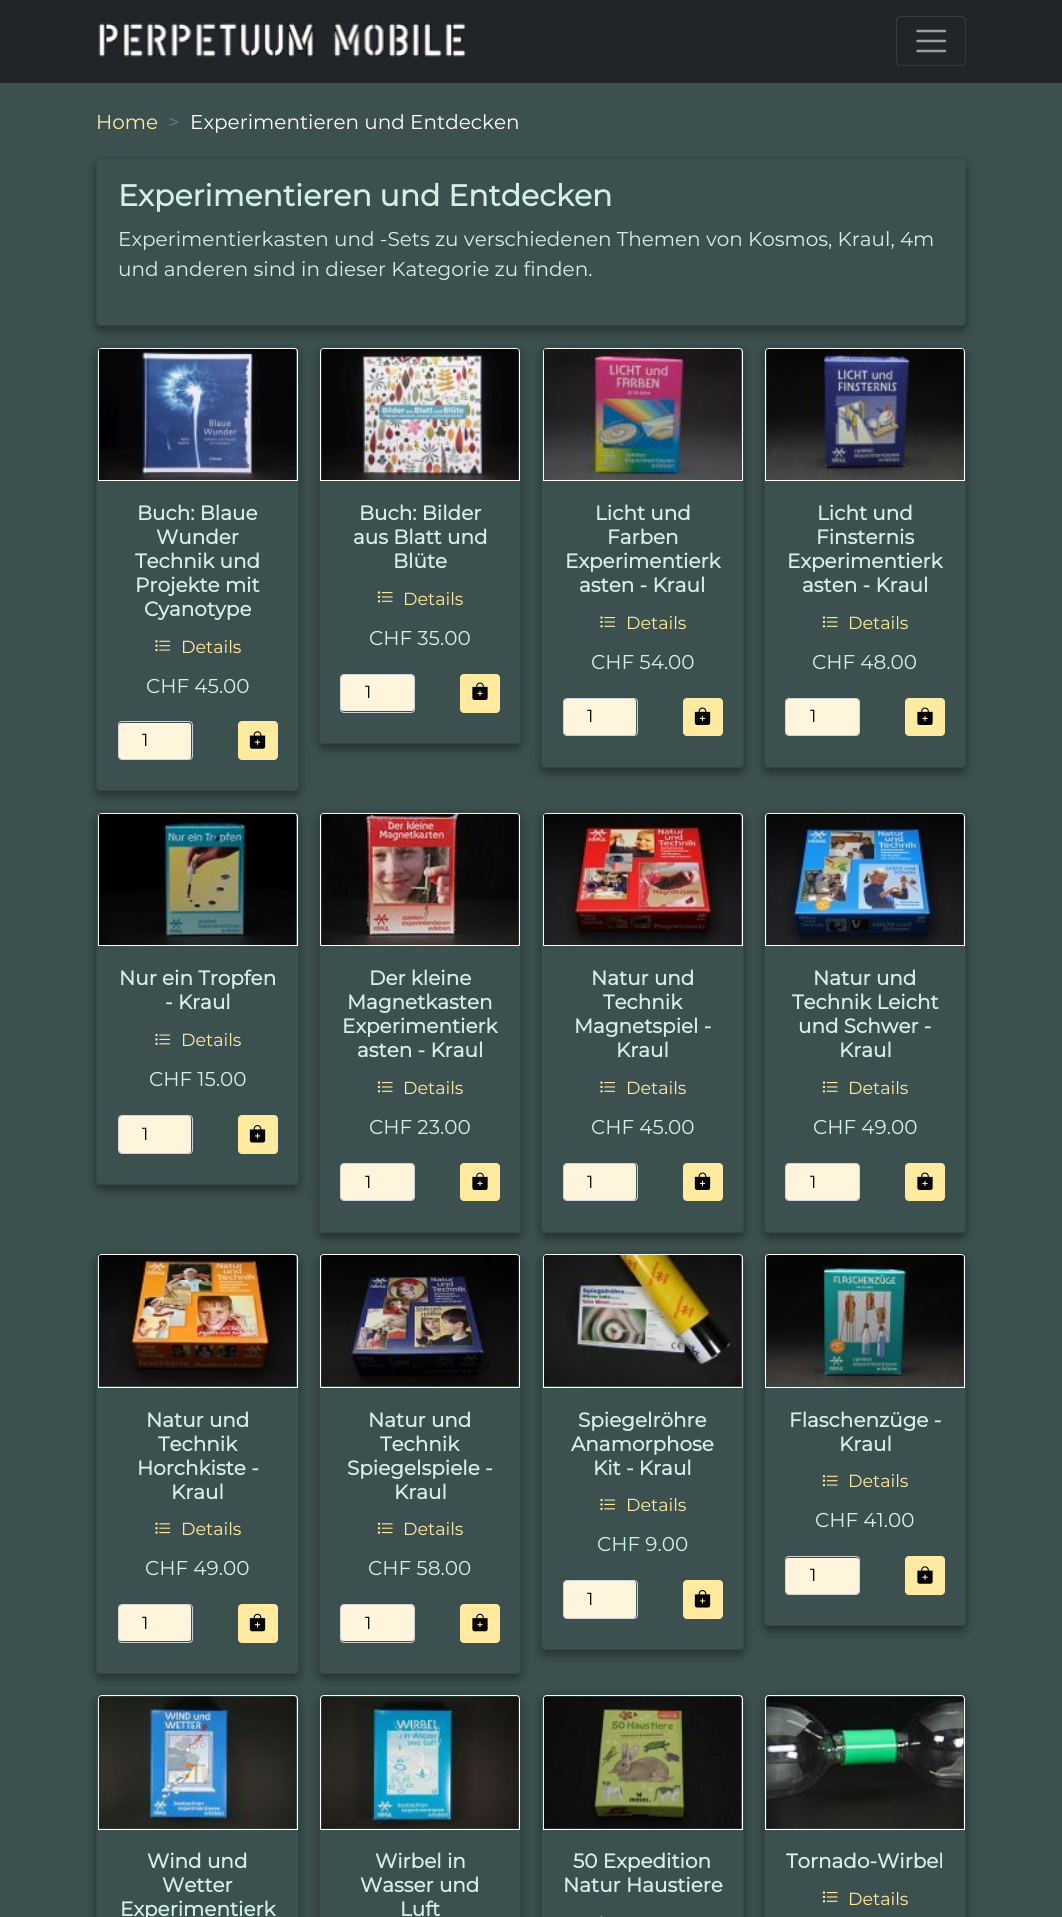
#include <cairo.h>
#include <math.h>
#include <stddef.h>

typedef struct { const char *family; double size; int italic, bold; unsigned color; } style_t;
static cairo_t *ctx;

static void ink(unsigned color) {
    cairo_set_source_rgb(ctx, (color >> 16) / 255.0, (color >> 8 & 255) / 255.0, (color & 255) / 255.0);
}

static void write(double x, double y, const char *s, const style_t *st) {
    cairo_select_font_face(ctx, st->family, st->italic ? CAIRO_FONT_SLANT_ITALIC : CAIRO_FONT_SLANT_NORMAL,
        st->bold ? CAIRO_FONT_WEIGHT_BOLD : CAIRO_FONT_WEIGHT_NORMAL);
    cairo_set_font_size(ctx, st->size);
    ink(st->color);
    cairo_move_to(ctx, x, y);
    cairo_show_text(ctx, s);
}

static void block(double x, double y, double w, double h, unsigned color) {
    ink(color);
    cairo_rectangle(ctx, x, y, w, h);
    cairo_fill(ctx);
}

static void round_path(double x, double y, double w, double h, double r) {
    cairo_new_sub_path(ctx);
    cairo_arc(ctx, x + w - r, y + h - r, r, 0, M_PI / 2);
    cairo_arc(ctx, x + r, y + h - r, r, M_PI / 2, M_PI);
    cairo_arc(ctx, x + r, y + r, r, M_PI, 1.5 * M_PI);
    cairo_arc(ctx, x + w - r, y + r, r, 1.5 * M_PI, 2 * M_PI);
    cairo_close_path(ctx);
}

static void blur_box(double x, double y, double w, double h, double r, double blur, double alpha) {
    cairo_push_group_with_content(ctx, CAIRO_CONTENT_ALPHA);
    cairo_set_operator(ctx, CAIRO_OPERATOR_SOURCE);
    for (int i = 15; i >= -15 && fmin(w, h) + blur * i / 3 > 0; i -= 2) {
        double e = blur * i / 6;
        cairo_set_source_rgba(ctx, 0, 0, 0, alpha * erfc((i - 1) / 8.5) / 2);
        round_path(x - e, y - e, w + 2 * e, h + 2 * e, fmax(0, fmin(r + e + blur * .6, fmin(w, h) / 2 + e)));
        cairo_fill(ctx);
    }
    cairo_pattern_t *soft = cairo_pop_group(ctx);
    cairo_mask(ctx, soft);
    cairo_pattern_destroy(soft);
}

static void paste(const char *path, double x, double y, double w, double h) {
    cairo_surface_t *image = cairo_image_surface_create_from_png(path);
    cairo_save(ctx);
    cairo_set_source_surface(ctx, image, x, y);
    cairo_rectangle(ctx, x, y, w, h);
    cairo_fill(ctx);
    cairo_restore(ctx);
    cairo_surface_destroy(image);
}

static const style_t s1 = {"Montserrat Thin", 20, 0, 0, 0xffeaa0};
static const style_t s2 = {"Montserrat Thin", 20, 0, 0, 0x6c757d};
static const style_t s3 = {"Montserrat Thin", 20, 0, 0, 0xffffff};
static const style_t s4 = {"Montserrat", 30, 0, 1, 0xd2f0e6};
static const style_t s5 = {"Montserrat Thin", 20, 0, 0, 0xd2f0e6};
static const style_t s6 = {"Montserrat", 20, 0, 1, 0xd2f0e6};
static const style_t s7 = {"Montserrat Thin", 17.5, 0, 0, 0xffeaa0};
static const style_t s8 = {"Montserrat Thin", 17.5, 0, 0, 0x000000};

int main(void) {
    cairo_surface_t *surface = cairo_image_surface_create(CAIRO_FORMAT_RGB24, 1062, 1917);
    ctx = cairo_create(surface);
    cairo_font_options_t *options = cairo_font_options_create();
    cairo_font_options_set_hint_metrics(options, CAIRO_HINT_METRICS_OFF);
    cairo_font_options_set_hint_style(options, CAIRO_HINT_STYLE_NONE);
    cairo_set_font_options(ctx, options);
    cairo_set_miter_limit(ctx, 4);
    ink(0x3c5050);
    cairo_paint(ctx);
    block(0, 0, 1062, 83, 0x212529);
    paste("pic1.png", 98, 23, 368, 34);
    round_path(896.5, 16.5, 69, 49, 4.5);
    ink(0x373b3e);
    cairo_set_line_width(ctx, 1);
    cairo_stroke(ctx);
    cairo_new_path(ctx);
    cairo_move_to(ctx, 917.5, 31);
    cairo_line_to(ctx, 945, 31);
    cairo_move_to(ctx, 917.5, 41);
    cairo_line_to(ctx, 945, 41);
    cairo_move_to(ctx, 917.5, 51);
    cairo_line_to(ctx, 945, 51);
    ink(0x9b9d9f);
    cairo_set_line_width(ctx, 2.5);
    cairo_set_line_cap(ctx, CAIRO_LINE_CAP_ROUND);
    cairo_stroke(ctx);
    write(96, 129, "Home", &s1);
    write(168, 129, ">", &s2);
    write(190, 129, "Experimentieren und Entdecken", &s3);
    cairo_save(ctx);
    cairo_set_fill_rule(ctx, CAIRO_FILL_RULE_EVEN_ODD);
    cairo_new_path(ctx);
    cairo_move_to(ctx, 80, 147);
    cairo_line_to(ctx, 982, 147);
    cairo_line_to(ctx, 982, 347);
    cairo_line_to(ctx, 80, 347);
    cairo_close_path(ctx);
    cairo_move_to(ctx, 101, 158);
    cairo_line_to(ctx, 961, 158);
    cairo_curve_to(ctx, 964, 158, 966, 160, 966, 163);
    cairo_line_to(ctx, 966, 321);
    cairo_curve_to(ctx, 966, 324, 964, 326, 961, 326);
    cairo_line_to(ctx, 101, 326);
    cairo_curve_to(ctx, 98, 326, 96, 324, 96, 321);
    cairo_line_to(ctx, 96, 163);
    cairo_curve_to(ctx, 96, 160, 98, 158, 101, 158);
    cairo_close_path(ctx);
    cairo_clip(ctx);
    ink(0x000000);
    blur_box(96, 163, 870, 168, 5, 5, 0.4);
    cairo_restore(ctx);
    round_path(96.5, 158.5, 869, 167, 4.5);
    cairo_set_source_rgba(ctx, 0, 0, 0, 0.12);
    cairo_set_line_width(ctx, 1);
    cairo_set_line_cap(ctx, CAIRO_LINE_CAP_BUTT);
    cairo_stroke(ctx);
    write(118, 206, "Experimentieren und Entdecken", &s4);
    write(118, 246, "Experimentierkasten und -Sets zu verschiedenen Themen von Kosmos, Kraul, 4m", &s5);
    write(118, 276, "und anderen sind in dieser Kategorie zu finden.", &s5);
    cairo_save(ctx);
    cairo_set_fill_rule(ctx, CAIRO_FILL_RULE_EVEN_ODD);
    cairo_new_path(ctx);
    cairo_move_to(ctx, 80, 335);
    cairo_line_to(ctx, 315, 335);
    cairo_line_to(ctx, 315, 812);
    cairo_line_to(ctx, 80, 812);
    cairo_close_path(ctx);
    cairo_move_to(ctx, 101, 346);
    cairo_line_to(ctx, 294, 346);
    cairo_curve_to(ctx, 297, 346, 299, 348, 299, 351);
    cairo_line_to(ctx, 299, 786);
    cairo_curve_to(ctx, 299, 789, 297, 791, 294, 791);
    cairo_line_to(ctx, 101, 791);
    cairo_curve_to(ctx, 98, 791, 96, 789, 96, 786);
    cairo_line_to(ctx, 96, 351);
    cairo_curve_to(ctx, 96, 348, 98, 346, 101, 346);
    cairo_close_path(ctx);
    cairo_clip(ctx);
    ink(0x000000);
    blur_box(96, 351, 203, 445, 5, 5, 0.4);
    cairo_restore(ctx);
    round_path(96.5, 346.5, 202, 444, 4.5);
    cairo_set_source_rgba(ctx, 0, 0, 0, 0.12);
    cairo_stroke(ctx);
    cairo_new_path(ctx);
    cairo_move_to(ctx, 102, 348.5);
    cairo_line_to(ctx, 294, 348.5);
    cairo_curve_to(ctx, 296, 348.5, 297.5, 350, 297.5, 352);
    cairo_line_to(ctx, 297.5, 480.5);
    cairo_line_to(ctx, 98.5, 480.5);
    cairo_line_to(ctx, 98.5, 352);
    cairo_curve_to(ctx, 98.5, 350, 100, 348.5, 102, 348.5);
    cairo_close_path(ctx);
    ink(0xffffff);
    cairo_stroke(ctx);
    paste("pic2.png", 98, 348, 199, 132);
    write(137, 520, "Buch: Blaue", &s6);
    write(156, 544, "Wunder", &s6);
    write(135, 568, "Technik und", &s6);
    write(135, 592, "Projekte mit", &s6);
    write(144, 616, "Cyanotype", &s6);
    paste("pic3.png", 155, 640, 16, 12);
    write(181, 653, "Details", &s7);
    write(146, 693, "CHF 45.00", &s5);
    ink(0xfff5dc);
    round_path(119, 723, 72, 36, 2.5);
    cairo_fill(ctx);
    round_path(118.5, 721.5, 74, 38, 3.5);
    ink(0xced4da);
    cairo_stroke(ctx);
    write(142, 746, "1", &s8);
    ink(0xffeaa0);
    round_path(238.5, 721.5, 39, 38, 3.5);
    cairo_fill_preserve(ctx);
    cairo_stroke(ctx);
    paste("pic4.png", 249, 731, 17, 18);
    cairo_save(ctx);
    cairo_set_fill_rule(ctx, CAIRO_FILL_RULE_EVEN_ODD);
    cairo_new_path(ctx);
    cairo_move_to(ctx, 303, 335);
    cairo_line_to(ctx, 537, 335);
    cairo_line_to(ctx, 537, 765);
    cairo_line_to(ctx, 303, 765);
    cairo_close_path(ctx);
    cairo_move_to(ctx, 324, 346);
    cairo_line_to(ctx, 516, 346);
    cairo_curve_to(ctx, 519, 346, 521, 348, 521, 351);
    cairo_line_to(ctx, 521, 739);
    cairo_curve_to(ctx, 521, 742, 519, 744, 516, 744);
    cairo_line_to(ctx, 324, 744);
    cairo_curve_to(ctx, 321, 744, 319, 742, 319, 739);
    cairo_line_to(ctx, 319, 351);
    cairo_curve_to(ctx, 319, 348, 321, 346, 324, 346);
    cairo_close_path(ctx);
    cairo_clip(ctx);
    ink(0x000000);
    blur_box(319, 351, 202, 398, 5, 5, 0.4);
    cairo_restore(ctx);
    round_path(319.5, 346.5, 201, 397, 4.5);
    cairo_set_source_rgba(ctx, 0, 0, 0, 0.12);
    cairo_stroke(ctx);
    cairo_new_path(ctx);
    cairo_move_to(ctx, 324, 348.5);
    cairo_line_to(ctx, 516, 348.5);
    cairo_curve_to(ctx, 518, 348.5, 519.5, 350, 519.5, 352);
    cairo_line_to(ctx, 519.5, 480.5);
    cairo_line_to(ctx, 320.5, 480.5);
    cairo_line_to(ctx, 320.5, 352);
    cairo_curve_to(ctx, 320.5, 350, 322, 348.5, 324, 348.5);
    cairo_close_path(ctx);
    ink(0xffffff);
    cairo_stroke(ctx);
    paste("pic5.png", 321, 348, 198, 132);
    write(359, 520, "Buch: Bilder", &s6);
    write(353, 544, "aus Blatt und", &s6);
    write(393, 568, "Blüte", &s6);
    paste("pic6.png", 377, 591, 16, 12);
    write(403, 605, "Details", &s7);
    write(369, 645, "CHF 35.00", &s5);
    ink(0xfff5dc);
    round_path(341, 675, 73, 36, 2.5);
    cairo_fill(ctx);
    round_path(340.5, 674.5, 74, 38, 3.5);
    ink(0xced4da);
    cairo_stroke(ctx);
    write(365, 698, "1", &s8);
    ink(0xffeaa0);
    round_path(460.5, 674.5, 39, 38, 3.5);
    cairo_fill_preserve(ctx);
    cairo_stroke(ctx);
    paste("pic7.png", 472, 682, 16, 18);
    cairo_save(ctx);
    cairo_set_fill_rule(ctx, CAIRO_FILL_RULE_EVEN_ODD);
    cairo_new_path(ctx);
    cairo_move_to(ctx, 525, 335);
    cairo_line_to(ctx, 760, 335);
    cairo_line_to(ctx, 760, 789);
    cairo_line_to(ctx, 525, 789);
    cairo_close_path(ctx);
    cairo_move_to(ctx, 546, 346);
    cairo_line_to(ctx, 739, 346);
    cairo_curve_to(ctx, 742, 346, 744, 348, 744, 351);
    cairo_line_to(ctx, 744, 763);
    cairo_curve_to(ctx, 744, 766, 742, 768, 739, 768);
    cairo_line_to(ctx, 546, 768);
    cairo_curve_to(ctx, 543, 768, 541, 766, 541, 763);
    cairo_line_to(ctx, 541, 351);
    cairo_curve_to(ctx, 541, 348, 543, 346, 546, 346);
    cairo_close_path(ctx);
    cairo_clip(ctx);
    ink(0x000000);
    blur_box(541, 351, 203, 422, 5, 5, 0.4);
    cairo_restore(ctx);
    round_path(541.5, 346.5, 202, 421, 4.5);
    cairo_set_source_rgba(ctx, 0, 0, 0, 0.12);
    cairo_stroke(ctx);
    cairo_new_path(ctx);
    cairo_move_to(ctx, 547, 348.5);
    cairo_line_to(ctx, 739, 348.5);
    cairo_curve_to(ctx, 741, 348.5, 742.5, 350, 742.5, 352);
    cairo_line_to(ctx, 742.5, 480.5);
    cairo_line_to(ctx, 543.5, 480.5);
    cairo_line_to(ctx, 543.5, 352);
    cairo_curve_to(ctx, 543.5, 350, 545, 348.5, 547, 348.5);
    cairo_close_path(ctx);
    ink(0xffffff);
    cairo_stroke(ctx);
    paste("pic8.png", 543, 348, 199, 132);
    write(595, 520, "Licht und", &s6);
    write(607, 544, "Farben", &s6);
    write(565, 568, "Experimentierk", &s6);
    write(579, 592, "asten - Kraul", &s6);
    paste("pic9.png", 600, 616, 16, 12);
    write(626, 629, "Details", &s7);
    write(591, 669, "CHF 54.00", &s5);
    ink(0xfff5dc);
    round_path(564, 699, 72, 36, 2.5);
    cairo_fill(ctx);
    round_path(563.5, 698.5, 74, 37, 3.5);
    ink(0xced4da);
    cairo_stroke(ctx);
    write(587, 722, "1", &s8);
    ink(0xffeaa0);
    round_path(683.5, 698.5, 39, 37, 3.5);
    cairo_fill_preserve(ctx);
    cairo_stroke(ctx);
    paste("pic10.png", 694, 707, 17, 18);
    cairo_save(ctx);
    cairo_set_fill_rule(ctx, CAIRO_FILL_RULE_EVEN_ODD);
    cairo_new_path(ctx);
    cairo_move_to(ctx, 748, 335);
    cairo_line_to(ctx, 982, 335);
    cairo_line_to(ctx, 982, 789);
    cairo_line_to(ctx, 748, 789);
    cairo_close_path(ctx);
    cairo_move_to(ctx, 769, 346);
    cairo_line_to(ctx, 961, 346);
    cairo_curve_to(ctx, 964, 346, 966, 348, 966, 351);
    cairo_line_to(ctx, 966, 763);
    cairo_curve_to(ctx, 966, 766, 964, 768, 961, 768);
    cairo_line_to(ctx, 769, 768);
    cairo_curve_to(ctx, 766, 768, 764, 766, 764, 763);
    cairo_line_to(ctx, 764, 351);
    cairo_curve_to(ctx, 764, 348, 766, 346, 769, 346);
    cairo_close_path(ctx);
    cairo_clip(ctx);
    ink(0x000000);
    blur_box(764, 351, 202, 422, 5, 5, 0.4);
    cairo_restore(ctx);
    round_path(764.5, 346.5, 201, 421, 4.5);
    cairo_set_source_rgba(ctx, 0, 0, 0, 0.12);
    cairo_stroke(ctx);
    cairo_new_path(ctx);
    cairo_move_to(ctx, 769, 348.5);
    cairo_line_to(ctx, 961, 348.5);
    cairo_curve_to(ctx, 963, 348.5, 964.5, 350, 964.5, 352);
    cairo_line_to(ctx, 964.5, 480.5);
    cairo_line_to(ctx, 765.5, 480.5);
    cairo_line_to(ctx, 765.5, 352);
    cairo_curve_to(ctx, 765.5, 350, 767, 348.5, 769, 348.5);
    cairo_close_path(ctx);
    ink(0xffffff);
    cairo_stroke(ctx);
    paste("pic11.png", 766, 348, 198, 132);
    write(817, 520, "Licht und", &s6);
    write(816, 544, "Finsternis", &s6);
    write(787, 568, "Experimentierk", &s6);
    write(802, 592, "asten - Kraul", &s6);
    paste("pic6.png", 822, 616, 16, 12);
    write(848, 629, "Details", &s7);
    write(812, 669, "CHF 48.00", &s5);
    ink(0xfff5dc);
    round_path(786, 699, 73, 36, 2.5);
    cairo_fill(ctx);
    round_path(785.5, 698.5, 74, 37, 3.5);
    ink(0xced4da);
    cairo_stroke(ctx);
    write(810, 722, "1", &s8);
    ink(0xffeaa0);
    round_path(905.5, 698.5, 39, 37, 3.5);
    cairo_fill_preserve(ctx);
    cairo_stroke(ctx);
    paste("pic7.png", 917, 707, 16, 18);
    cairo_save(ctx);
    cairo_set_fill_rule(ctx, CAIRO_FILL_RULE_EVEN_ODD);
    cairo_new_path(ctx);
    cairo_move_to(ctx, 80, 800);
    cairo_line_to(ctx, 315, 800);
    cairo_line_to(ctx, 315, 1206);
    cairo_line_to(ctx, 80, 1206);
    cairo_close_path(ctx);
    cairo_move_to(ctx, 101, 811);
    cairo_line_to(ctx, 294, 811);
    cairo_curve_to(ctx, 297, 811, 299, 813, 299, 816);
    cairo_line_to(ctx, 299, 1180);
    cairo_curve_to(ctx, 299, 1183, 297, 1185, 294, 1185);
    cairo_line_to(ctx, 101, 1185);
    cairo_curve_to(ctx, 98, 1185, 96, 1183, 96, 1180);
    cairo_line_to(ctx, 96, 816);
    cairo_curve_to(ctx, 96, 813, 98, 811, 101, 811);
    cairo_close_path(ctx);
    cairo_clip(ctx);
    ink(0x000000);
    blur_box(96, 816, 203, 374, 5, 5, 0.4);
    cairo_restore(ctx);
    round_path(96.5, 811.5, 202, 373, 4.5);
    cairo_set_source_rgba(ctx, 0, 0, 0, 0.12);
    cairo_stroke(ctx);
    cairo_new_path(ctx);
    cairo_move_to(ctx, 102, 813.5);
    cairo_line_to(ctx, 294, 813.5);
    cairo_curve_to(ctx, 296, 813.5, 297.5, 815, 297.5, 817);
    cairo_line_to(ctx, 297.5, 945.5);
    cairo_line_to(ctx, 98.5, 945.5);
    cairo_line_to(ctx, 98.5, 817);
    cairo_curve_to(ctx, 98.5, 815, 100, 813.5, 102, 813.5);
    cairo_close_path(ctx);
    ink(0xffffff);
    cairo_stroke(ctx);
    paste("pic12.png", 98, 813, 199, 132);
    write(119, 985, "Nur ein Tropfen", &s6);
    write(165, 1009, "- Kraul", &s6);
    paste("pic13.png", 155, 1034, 16, 11);
    write(181, 1046, "Details", &s7);
    write(149, 1086, "CHF 15.00", &s5);
    ink(0xfff5dc);
    round_path(119, 1116, 72, 37, 2.5);
    cairo_fill(ctx);
    round_path(118.5, 1115.5, 74, 38, 3.5);
    ink(0xced4da);
    cairo_stroke(ctx);
    write(142, 1140, "1", &s8);
    ink(0xffeaa0);
    round_path(238.5, 1115.5, 39, 38, 3.5);
    cairo_fill_preserve(ctx);
    cairo_stroke(ctx);
    paste("pic14.png", 249, 1125, 17, 18);
    cairo_save(ctx);
    cairo_set_fill_rule(ctx, CAIRO_FILL_RULE_EVEN_ODD);
    cairo_new_path(ctx);
    cairo_move_to(ctx, 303, 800);
    cairo_line_to(ctx, 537, 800);
    cairo_line_to(ctx, 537, 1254);
    cairo_line_to(ctx, 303, 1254);
    cairo_close_path(ctx);
    cairo_move_to(ctx, 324, 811);
    cairo_line_to(ctx, 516, 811);
    cairo_curve_to(ctx, 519, 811, 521, 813, 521, 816);
    cairo_line_to(ctx, 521, 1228);
    cairo_curve_to(ctx, 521, 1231, 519, 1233, 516, 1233);
    cairo_line_to(ctx, 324, 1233);
    cairo_curve_to(ctx, 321, 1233, 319, 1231, 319, 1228);
    cairo_line_to(ctx, 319, 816);
    cairo_curve_to(ctx, 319, 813, 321, 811, 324, 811);
    cairo_close_path(ctx);
    cairo_clip(ctx);
    ink(0x000000);
    blur_box(319, 816, 202, 422, 5, 5, 0.4);
    cairo_restore(ctx);
    round_path(319.5, 811.5, 201, 421, 4.5);
    cairo_set_source_rgba(ctx, 0, 0, 0, 0.12);
    cairo_stroke(ctx);
    cairo_new_path(ctx);
    cairo_move_to(ctx, 324, 813.5);
    cairo_line_to(ctx, 516, 813.5);
    cairo_curve_to(ctx, 518, 813.5, 519.5, 815, 519.5, 817);
    cairo_line_to(ctx, 519.5, 945.5);
    cairo_line_to(ctx, 320.5, 945.5);
    cairo_line_to(ctx, 320.5, 817);
    cairo_curve_to(ctx, 320.5, 815, 322, 813.5, 324, 813.5);
    cairo_close_path(ctx);
    ink(0xffffff);
    cairo_stroke(ctx);
    paste("pic15.png", 321, 813, 198, 132);
    write(369, 985, "Der kleine", &s6);
    write(347, 1009, "Magnetkasten", &s6);
    write(342, 1033, "Experimentierk", &s6);
    write(357, 1057, "asten - Kraul", &s6);
    paste("pic6.png", 377, 1081, 16, 12);
    write(403, 1094, "Details", &s7);
    write(369, 1134, "CHF 23.00", &s5);
    ink(0xfff5dc);
    round_path(341, 1164, 73, 36, 2.5);
    cairo_fill(ctx);
    round_path(340.5, 1163.5, 74, 37, 3.5);
    ink(0xced4da);
    cairo_stroke(ctx);
    write(365, 1188, "1", &s8);
    ink(0xffeaa0);
    round_path(460.5, 1163.5, 39, 37, 3.5);
    cairo_fill_preserve(ctx);
    cairo_stroke(ctx);
    paste("pic7.png", 472, 1172, 16, 18);
    cairo_save(ctx);
    cairo_set_fill_rule(ctx, CAIRO_FILL_RULE_EVEN_ODD);
    cairo_new_path(ctx);
    cairo_move_to(ctx, 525, 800);
    cairo_line_to(ctx, 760, 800);
    cairo_line_to(ctx, 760, 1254);
    cairo_line_to(ctx, 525, 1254);
    cairo_close_path(ctx);
    cairo_move_to(ctx, 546, 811);
    cairo_line_to(ctx, 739, 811);
    cairo_curve_to(ctx, 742, 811, 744, 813, 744, 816);
    cairo_line_to(ctx, 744, 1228);
    cairo_curve_to(ctx, 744, 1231, 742, 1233, 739, 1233);
    cairo_line_to(ctx, 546, 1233);
    cairo_curve_to(ctx, 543, 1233, 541, 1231, 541, 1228);
    cairo_line_to(ctx, 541, 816);
    cairo_curve_to(ctx, 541, 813, 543, 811, 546, 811);
    cairo_close_path(ctx);
    cairo_clip(ctx);
    ink(0x000000);
    blur_box(541, 816, 203, 422, 5, 5, 0.4);
    cairo_restore(ctx);
    round_path(541.5, 811.5, 202, 421, 4.5);
    cairo_set_source_rgba(ctx, 0, 0, 0, 0.12);
    cairo_stroke(ctx);
    cairo_new_path(ctx);
    cairo_move_to(ctx, 547, 813.5);
    cairo_line_to(ctx, 739, 813.5);
    cairo_curve_to(ctx, 741, 813.5, 742.5, 815, 742.5, 817);
    cairo_line_to(ctx, 742.5, 945.5);
    cairo_line_to(ctx, 543.5, 945.5);
    cairo_line_to(ctx, 543.5, 817);
    cairo_curve_to(ctx, 543.5, 815, 545, 813.5, 547, 813.5);
    cairo_close_path(ctx);
    ink(0xffffff);
    cairo_stroke(ctx);
    paste("pic16.png", 543, 813, 199, 132);
    write(591, 985, "Natur und", &s6);
    write(603, 1009, "Technik", &s6);
    write(574, 1033, "Magnetspiel -", &s6);
    write(616, 1057, "Kraul", &s6);
    paste("pic9.png", 600, 1081, 16, 12);
    write(626, 1094, "Details", &s7);
    write(591, 1134, "CHF 45.00", &s5);
    ink(0xfff5dc);
    round_path(564, 1164, 72, 36, 2.5);
    cairo_fill(ctx);
    round_path(563.5, 1163.5, 74, 37, 3.5);
    ink(0xced4da);
    cairo_stroke(ctx);
    write(587, 1188, "1", &s8);
    ink(0xffeaa0);
    round_path(683.5, 1163.5, 39, 37, 3.5);
    cairo_fill_preserve(ctx);
    cairo_stroke(ctx);
    paste("pic10.png", 694, 1172, 17, 18);
    cairo_save(ctx);
    cairo_set_fill_rule(ctx, CAIRO_FILL_RULE_EVEN_ODD);
    cairo_new_path(ctx);
    cairo_move_to(ctx, 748, 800);
    cairo_line_to(ctx, 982, 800);
    cairo_line_to(ctx, 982, 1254);
    cairo_line_to(ctx, 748, 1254);
    cairo_close_path(ctx);
    cairo_move_to(ctx, 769, 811);
    cairo_line_to(ctx, 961, 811);
    cairo_curve_to(ctx, 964, 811, 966, 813, 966, 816);
    cairo_line_to(ctx, 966, 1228);
    cairo_curve_to(ctx, 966, 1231, 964, 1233, 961, 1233);
    cairo_line_to(ctx, 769, 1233);
    cairo_curve_to(ctx, 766, 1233, 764, 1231, 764, 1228);
    cairo_line_to(ctx, 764, 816);
    cairo_curve_to(ctx, 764, 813, 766, 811, 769, 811);
    cairo_close_path(ctx);
    cairo_clip(ctx);
    ink(0x000000);
    blur_box(764, 816, 202, 422, 5, 5, 0.4);
    cairo_restore(ctx);
    round_path(764.5, 811.5, 201, 421, 4.5);
    cairo_set_source_rgba(ctx, 0, 0, 0, 0.12);
    cairo_stroke(ctx);
    cairo_new_path(ctx);
    cairo_move_to(ctx, 769, 813.5);
    cairo_line_to(ctx, 961, 813.5);
    cairo_curve_to(ctx, 963, 813.5, 964.5, 815, 964.5, 817);
    cairo_line_to(ctx, 964.5, 945.5);
    cairo_line_to(ctx, 765.5, 945.5);
    cairo_line_to(ctx, 765.5, 817);
    cairo_curve_to(ctx, 765.5, 815, 767, 813.5, 769, 813.5);
    cairo_close_path(ctx);
    ink(0xffffff);
    cairo_stroke(ctx);
    paste("pic17.png", 766, 813, 198, 132);
    write(813, 985, "Natur und", &s6);
    write(792, 1009, "Technik Leicht", &s6);
    write(798, 1033, "und Schwer -", &s6);
    write(839, 1057, "Kraul", &s6);
    paste("pic6.png", 822, 1081, 16, 12);
    write(848, 1094, "Details", &s7);
    write(813, 1134, "CHF 49.00", &s5);
    ink(0xfff5dc);
    round_path(786, 1164, 73, 36, 2.5);
    cairo_fill(ctx);
    round_path(785.5, 1163.5, 74, 37, 3.5);
    ink(0xced4da);
    cairo_stroke(ctx);
    write(810, 1188, "1", &s8);
    ink(0xffeaa0);
    round_path(905.5, 1163.5, 39, 37, 3.5);
    cairo_fill_preserve(ctx);
    cairo_stroke(ctx);
    paste("pic7.png", 917, 1172, 16, 18);
    cairo_save(ctx);
    cairo_set_fill_rule(ctx, CAIRO_FILL_RULE_EVEN_ODD);
    cairo_new_path(ctx);
    cairo_move_to(ctx, 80, 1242);
    cairo_line_to(ctx, 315, 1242);
    cairo_line_to(ctx, 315, 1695);
    cairo_line_to(ctx, 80, 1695);
    cairo_close_path(ctx);
    cairo_move_to(ctx, 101, 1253);
    cairo_line_to(ctx, 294, 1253);
    cairo_curve_to(ctx, 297, 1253, 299, 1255, 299, 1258);
    cairo_line_to(ctx, 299, 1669);
    cairo_curve_to(ctx, 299, 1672, 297, 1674, 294, 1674);
    cairo_line_to(ctx, 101, 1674);
    cairo_curve_to(ctx, 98, 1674, 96, 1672, 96, 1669);
    cairo_line_to(ctx, 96, 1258);
    cairo_curve_to(ctx, 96, 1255, 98, 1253, 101, 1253);
    cairo_close_path(ctx);
    cairo_clip(ctx);
    ink(0x000000);
    blur_box(96, 1258, 203, 421, 5, 5, 0.4);
    cairo_restore(ctx);
    round_path(96.5, 1253.5, 202, 420, 4.5);
    cairo_set_source_rgba(ctx, 0, 0, 0, 0.12);
    cairo_stroke(ctx);
    cairo_new_path(ctx);
    cairo_move_to(ctx, 102, 1254.5);
    cairo_line_to(ctx, 294, 1254.5);
    cairo_curve_to(ctx, 296, 1254.5, 297.5, 1256, 297.5, 1258);
    cairo_line_to(ctx, 297.5, 1387.5);
    cairo_line_to(ctx, 98.5, 1387.5);
    cairo_line_to(ctx, 98.5, 1258);
    cairo_curve_to(ctx, 98.5, 1256, 100, 1254.5, 102, 1254.5);
    cairo_close_path(ctx);
    ink(0xffffff);
    cairo_stroke(ctx);
    paste("pic18.png", 98, 1255, 199, 132);
    write(146, 1427, "Natur und", &s6);
    write(158, 1451, "Technik", &s6);
    write(137, 1475, "Horchkiste -", &s6);
    write(171, 1499, "Kraul", &s6);
    paste("pic19.png", 155, 1522, 16, 12);
    write(181, 1535, "Details", &s7);
    write(145, 1575, "CHF 49.00", &s5);
    ink(0xfff5dc);
    round_path(119, 1605, 72, 36, 2.5);
    cairo_fill(ctx);
    round_path(118.5, 1604.5, 74, 38, 3.5);
    ink(0xced4da);
    cairo_stroke(ctx);
    write(142, 1629, "1", &s8);
    ink(0xffeaa0);
    round_path(238.5, 1604.5, 39, 38, 3.5);
    cairo_fill_preserve(ctx);
    cairo_stroke(ctx);
    paste("pic20.png", 249, 1613, 17, 19);
    cairo_save(ctx);
    cairo_set_fill_rule(ctx, CAIRO_FILL_RULE_EVEN_ODD);
    cairo_new_path(ctx);
    cairo_move_to(ctx, 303, 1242);
    cairo_line_to(ctx, 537, 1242);
    cairo_line_to(ctx, 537, 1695);
    cairo_line_to(ctx, 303, 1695);
    cairo_close_path(ctx);
    cairo_move_to(ctx, 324, 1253);
    cairo_line_to(ctx, 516, 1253);
    cairo_curve_to(ctx, 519, 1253, 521, 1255, 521, 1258);
    cairo_line_to(ctx, 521, 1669);
    cairo_curve_to(ctx, 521, 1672, 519, 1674, 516, 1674);
    cairo_line_to(ctx, 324, 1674);
    cairo_curve_to(ctx, 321, 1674, 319, 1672, 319, 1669);
    cairo_line_to(ctx, 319, 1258);
    cairo_curve_to(ctx, 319, 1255, 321, 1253, 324, 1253);
    cairo_close_path(ctx);
    cairo_clip(ctx);
    ink(0x000000);
    blur_box(319, 1258, 202, 421, 5, 5, 0.4);
    cairo_restore(ctx);
    round_path(319.5, 1253.5, 201, 420, 4.5);
    cairo_set_source_rgba(ctx, 0, 0, 0, 0.12);
    cairo_stroke(ctx);
    cairo_new_path(ctx);
    cairo_move_to(ctx, 324, 1254.5);
    cairo_line_to(ctx, 516, 1254.5);
    cairo_curve_to(ctx, 518, 1254.5, 519.5, 1256, 519.5, 1258);
    cairo_line_to(ctx, 519.5, 1387.5);
    cairo_line_to(ctx, 320.5, 1387.5);
    cairo_line_to(ctx, 320.5, 1258);
    cairo_curve_to(ctx, 320.5, 1256, 322, 1254.5, 324, 1254.5);
    cairo_close_path(ctx);
    ink(0xffffff);
    cairo_stroke(ctx);
    paste("pic21.png", 321, 1255, 198, 132);
    write(368, 1427, "Natur und", &s6);
    write(380, 1451, "Technik", &s6);
    write(347, 1475, "Spiegelspiele -", &s6);
    write(394, 1499, "Kraul", &s6);
    paste("pic22.png", 377, 1522, 16, 12);
    write(403, 1535, "Details", &s7);
    write(368, 1575, "CHF 58.00", &s5);
    ink(0xfff5dc);
    round_path(341, 1605, 73, 36, 2.5);
    cairo_fill(ctx);
    round_path(340.5, 1604.5, 74, 38, 3.5);
    ink(0xced4da);
    cairo_stroke(ctx);
    write(365, 1629, "1", &s8);
    ink(0xffeaa0);
    round_path(460.5, 1604.5, 39, 38, 3.5);
    cairo_fill_preserve(ctx);
    cairo_stroke(ctx);
    paste("pic23.png", 472, 1613, 16, 19);
    cairo_save(ctx);
    cairo_set_fill_rule(ctx, CAIRO_FILL_RULE_EVEN_ODD);
    cairo_new_path(ctx);
    cairo_move_to(ctx, 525, 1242);
    cairo_line_to(ctx, 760, 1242);
    cairo_line_to(ctx, 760, 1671);
    cairo_line_to(ctx, 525, 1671);
    cairo_close_path(ctx);
    cairo_move_to(ctx, 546, 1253);
    cairo_line_to(ctx, 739, 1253);
    cairo_curve_to(ctx, 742, 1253, 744, 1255, 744, 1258);
    cairo_line_to(ctx, 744, 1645);
    cairo_curve_to(ctx, 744, 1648, 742, 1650, 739, 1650);
    cairo_line_to(ctx, 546, 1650);
    cairo_curve_to(ctx, 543, 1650, 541, 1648, 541, 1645);
    cairo_line_to(ctx, 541, 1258);
    cairo_curve_to(ctx, 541, 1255, 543, 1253, 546, 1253);
    cairo_close_path(ctx);
    cairo_clip(ctx);
    ink(0x000000);
    blur_box(541, 1258, 203, 397, 5, 5, 0.4);
    cairo_restore(ctx);
    round_path(541.5, 1253.5, 202, 396, 4.5);
    cairo_set_source_rgba(ctx, 0, 0, 0, 0.12);
    cairo_stroke(ctx);
    cairo_new_path(ctx);
    cairo_move_to(ctx, 547, 1254.5);
    cairo_line_to(ctx, 739, 1254.5);
    cairo_curve_to(ctx, 741, 1254.5, 742.5, 1256, 742.5, 1258);
    cairo_line_to(ctx, 742.5, 1387.5);
    cairo_line_to(ctx, 543.5, 1387.5);
    cairo_line_to(ctx, 543.5, 1258);
    cairo_curve_to(ctx, 543.5, 1256, 545, 1254.5, 547, 1254.5);
    cairo_close_path(ctx);
    ink(0xffffff);
    cairo_stroke(ctx);
    paste("pic24.png", 543, 1255, 199, 132);
    write(578, 1427, "Spiegelröhre", &s6);
    write(571, 1451, "Anamorphose", &s6);
    write(593, 1475, "Kit - Kraul", &s6);
    paste("pic13.png", 600, 1499, 16, 11);
    write(626, 1511, "Details", &s7);
    write(597, 1551, "CHF 9.00", &s5);
    ink(0xfff5dc);
    round_path(564, 1581, 72, 37, 2.5);
    cairo_fill(ctx);
    round_path(563.5, 1580.5, 74, 38, 3.5);
    ink(0xced4da);
    cairo_stroke(ctx);
    write(587, 1605, "1", &s8);
    ink(0xffeaa0);
    round_path(683.5, 1580.5, 39, 38, 3.5);
    cairo_fill_preserve(ctx);
    cairo_stroke(ctx);
    paste("pic14.png", 694, 1590, 17, 18);
    cairo_save(ctx);
    cairo_set_fill_rule(ctx, CAIRO_FILL_RULE_EVEN_ODD);
    cairo_new_path(ctx);
    cairo_move_to(ctx, 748, 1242);
    cairo_line_to(ctx, 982, 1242);
    cairo_line_to(ctx, 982, 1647);
    cairo_line_to(ctx, 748, 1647);
    cairo_close_path(ctx);
    cairo_move_to(ctx, 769, 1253);
    cairo_line_to(ctx, 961, 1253);
    cairo_curve_to(ctx, 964, 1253, 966, 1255, 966, 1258);
    cairo_line_to(ctx, 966, 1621);
    cairo_curve_to(ctx, 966, 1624, 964, 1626, 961, 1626);
    cairo_line_to(ctx, 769, 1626);
    cairo_curve_to(ctx, 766, 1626, 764, 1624, 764, 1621);
    cairo_line_to(ctx, 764, 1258);
    cairo_curve_to(ctx, 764, 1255, 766, 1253, 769, 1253);
    cairo_close_path(ctx);
    cairo_clip(ctx);
    ink(0x000000);
    blur_box(764, 1258, 202, 373, 5, 5, 0.4);
    cairo_restore(ctx);
    round_path(764.5, 1253.5, 201, 372, 4.5);
    ink(0x344646);
    cairo_stroke(ctx);
    cairo_new_path(ctx);
    cairo_move_to(ctx, 769, 1254.5);
    cairo_line_to(ctx, 961, 1254.5);
    cairo_curve_to(ctx, 963, 1254.5, 964.5, 1256, 964.5, 1258);
    cairo_line_to(ctx, 964.5, 1387.5);
    cairo_line_to(ctx, 765.5, 1387.5);
    cairo_line_to(ctx, 765.5, 1258);
    cairo_curve_to(ctx, 765.5, 1256, 767, 1254.5, 769, 1254.5);
    cairo_close_path(ctx);
    ink(0xffffff);
    cairo_stroke(ctx);
    paste("pic25.png", 766, 1255, 198, 131);
    write(789, 1427, "Flaschenzüge -", &s6);
    write(839, 1451, "Kraul", &s6);
    paste("pic26.png", 822, 1475, 16, 12);
    write(848, 1487, "Details", &s7);
    write(815, 1527, "CHF 41.00", &s5);
    ink(0xfff5dc);
    round_path(786, 1558, 73, 36, 2.5);
    cairo_fill(ctx);
    round_path(785.5, 1556.5, 74, 38, 3.5);
    ink(0xced4da);
    cairo_stroke(ctx);
    write(810, 1581, "1", &s8);
    ink(0xffeaa0);
    round_path(905.5, 1556.5, 39, 38, 3.5);
    cairo_fill_preserve(ctx);
    cairo_stroke(ctx);
    paste("pic27.png", 917, 1566, 16, 18);
    cairo_save(ctx);
    cairo_set_fill_rule(ctx, CAIRO_FILL_RULE_EVEN_ODD);
    cairo_new_path(ctx);
    cairo_move_to(ctx, 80, 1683);
    cairo_line_to(ctx, 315, 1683);
    cairo_line_to(ctx, 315, 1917);
    cairo_line_to(ctx, 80, 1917);
    cairo_close_path(ctx);
    cairo_move_to(ctx, 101, 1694);
    cairo_line_to(ctx, 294, 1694);
    cairo_curve_to(ctx, 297, 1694, 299, 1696, 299, 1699);
    cairo_line_to(ctx, 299, 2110);
    cairo_curve_to(ctx, 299, 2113, 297, 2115, 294, 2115);
    cairo_line_to(ctx, 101, 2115);
    cairo_curve_to(ctx, 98, 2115, 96, 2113, 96, 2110);
    cairo_line_to(ctx, 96, 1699);
    cairo_curve_to(ctx, 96, 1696, 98, 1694, 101, 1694);
    cairo_close_path(ctx);
    cairo_clip(ctx);
    ink(0x000000);
    blur_box(96, 1699, 203, 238, 5, 5, 0.4);
    cairo_restore(ctx);
    round_path(96.5, 1694.5, 202, 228, 4.5);
    cairo_set_source_rgba(ctx, 0, 0, 0, 0.12);
    cairo_stroke(ctx);
    cairo_new_path(ctx);
    cairo_move_to(ctx, 102, 1695.5);
    cairo_line_to(ctx, 294, 1695.5);
    cairo_curve_to(ctx, 296, 1695.5, 297.5, 1697, 297.5, 1699);
    cairo_line_to(ctx, 297.5, 1829.5);
    cairo_line_to(ctx, 98.5, 1829.5);
    cairo_line_to(ctx, 98.5, 1699);
    cairo_curve_to(ctx, 98.5, 1697, 100, 1695.5, 102, 1695.5);
    cairo_close_path(ctx);
    ink(0xffffff);
    cairo_stroke(ctx);
    paste("pic28.png", 98, 1696, 199, 133);
    write(147, 1868, "Wind und", &s6);
    write(162, 1892, "Wetter", &s6);
    write(120, 1916, "Experimentierk", &s6);
    cairo_save(ctx);
    cairo_set_fill_rule(ctx, CAIRO_FILL_RULE_EVEN_ODD);
    cairo_new_path(ctx);
    cairo_move_to(ctx, 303, 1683);
    cairo_line_to(ctx, 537, 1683);
    cairo_line_to(ctx, 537, 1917);
    cairo_line_to(ctx, 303, 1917);
    cairo_close_path(ctx);
    cairo_move_to(ctx, 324, 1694);
    cairo_line_to(ctx, 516, 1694);
    cairo_curve_to(ctx, 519, 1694, 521, 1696, 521, 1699);
    cairo_line_to(ctx, 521, 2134);
    cairo_curve_to(ctx, 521, 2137, 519, 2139, 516, 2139);
    cairo_line_to(ctx, 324, 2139);
    cairo_curve_to(ctx, 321, 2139, 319, 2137, 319, 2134);
    cairo_line_to(ctx, 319, 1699);
    cairo_curve_to(ctx, 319, 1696, 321, 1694, 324, 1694);
    cairo_close_path(ctx);
    cairo_clip(ctx);
    ink(0x000000);
    blur_box(319, 1699, 202, 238, 5, 5, 0.4);
    cairo_restore(ctx);
    round_path(319.5, 1694.5, 201, 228, 4.5);
    ink(0x344646);
    cairo_stroke(ctx);
    cairo_new_path(ctx);
    cairo_move_to(ctx, 324, 1695.5);
    cairo_line_to(ctx, 516, 1695.5);
    cairo_curve_to(ctx, 518, 1695.5, 519.5, 1697, 519.5, 1699);
    cairo_line_to(ctx, 519.5, 1829.5);
    cairo_line_to(ctx, 320.5, 1829.5);
    cairo_line_to(ctx, 320.5, 1699);
    cairo_curve_to(ctx, 320.5, 1697, 322, 1695.5, 324, 1695.5);
    cairo_close_path(ctx);
    ink(0xffffff);
    cairo_stroke(ctx);
    paste("pic29.png", 321, 1696, 198, 133);
    write(375, 1868, "Wirbel in", &s6);
    write(360, 1892, "Wasser und", &s6);
    write(400, 1916, "Luft", &s6);
    cairo_save(ctx);
    cairo_set_fill_rule(ctx, CAIRO_FILL_RULE_EVEN_ODD);
    cairo_new_path(ctx);
    cairo_move_to(ctx, 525, 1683);
    cairo_line_to(ctx, 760, 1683);
    cairo_line_to(ctx, 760, 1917);
    cairo_line_to(ctx, 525, 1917);
    cairo_close_path(ctx);
    cairo_move_to(ctx, 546, 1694);
    cairo_line_to(ctx, 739, 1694);
    cairo_curve_to(ctx, 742, 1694, 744, 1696, 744, 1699);
    cairo_line_to(ctx, 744, 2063);
    cairo_curve_to(ctx, 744, 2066, 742, 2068, 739, 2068);
    cairo_line_to(ctx, 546, 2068);
    cairo_curve_to(ctx, 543, 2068, 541, 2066, 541, 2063);
    cairo_line_to(ctx, 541, 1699);
    cairo_curve_to(ctx, 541, 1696, 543, 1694, 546, 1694);
    cairo_close_path(ctx);
    cairo_clip(ctx);
    ink(0x000000);
    blur_box(541, 1699, 203, 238, 5, 5, 0.4);
    cairo_restore(ctx);
    round_path(541.5, 1694.5, 202, 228, 4.5);
    cairo_set_source_rgba(ctx, 0, 0, 0, 0.12);
    cairo_stroke(ctx);
    cairo_new_path(ctx);
    cairo_move_to(ctx, 547, 1695.5);
    cairo_line_to(ctx, 739, 1695.5);
    cairo_curve_to(ctx, 741, 1695.5, 742.5, 1697, 742.5, 1699);
    cairo_line_to(ctx, 742.5, 1829.5);
    cairo_line_to(ctx, 543.5, 1829.5);
    cairo_line_to(ctx, 543.5, 1699);
    cairo_curve_to(ctx, 543.5, 1697, 545, 1695.5, 547, 1695.5);
    cairo_close_path(ctx);
    ink(0xffffff);
    cairo_stroke(ctx);
    paste("pic30.png", 543, 1696, 199, 133);
    write(573, 1868, "50 Expedition", &s6);
    write(563, 1892, "Natur Haustiere", &s6);
    paste("pic31.png", 600, 1916, 3, 1);
    cairo_save(ctx);
    cairo_set_fill_rule(ctx, CAIRO_FILL_RULE_EVEN_ODD);
    cairo_new_path(ctx);
    cairo_move_to(ctx, 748, 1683);
    cairo_line_to(ctx, 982, 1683);
    cairo_line_to(ctx, 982, 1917);
    cairo_line_to(ctx, 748, 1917);
    cairo_close_path(ctx);
    cairo_move_to(ctx, 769, 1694);
    cairo_line_to(ctx, 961, 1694);
    cairo_curve_to(ctx, 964, 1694, 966, 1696, 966, 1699);
    cairo_line_to(ctx, 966, 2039);
    cairo_curve_to(ctx, 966, 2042, 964, 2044, 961, 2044);
    cairo_line_to(ctx, 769, 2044);
    cairo_curve_to(ctx, 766, 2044, 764, 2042, 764, 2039);
    cairo_line_to(ctx, 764, 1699);
    cairo_curve_to(ctx, 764, 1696, 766, 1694, 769, 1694);
    cairo_close_path(ctx);
    cairo_clip(ctx);
    ink(0x000000);
    blur_box(764, 1699, 202, 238, 5, 5, 0.4);
    cairo_restore(ctx);
    round_path(764.5, 1694.5, 201, 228, 4.5);
    ink(0x344646);
    cairo_stroke(ctx);
    cairo_new_path(ctx);
    cairo_move_to(ctx, 769, 1695.5);
    cairo_line_to(ctx, 961, 1695.5);
    cairo_curve_to(ctx, 963, 1695.5, 964.5, 1697, 964.5, 1699);
    cairo_line_to(ctx, 964.5, 1829.5);
    cairo_line_to(ctx, 765.5, 1829.5);
    cairo_line_to(ctx, 765.5, 1699);
    cairo_curve_to(ctx, 765.5, 1697, 767, 1695.5, 769, 1695.5);
    cairo_close_path(ctx);
    ink(0xffffff);
    cairo_stroke(ctx);
    paste("pic32.png", 766, 1696, 198, 133);
    write(786, 1868, "Tornado-Wirbel", &s6);
    paste("pic6.png", 822, 1891, 16, 12);
    write(848, 1905, "Details", &s7);
    cairo_surface_write_to_png(surface, "screenshot.png");
    cairo_font_options_destroy(options);
    cairo_destroy(ctx);
    cairo_surface_destroy(surface);
    return 0;
}
